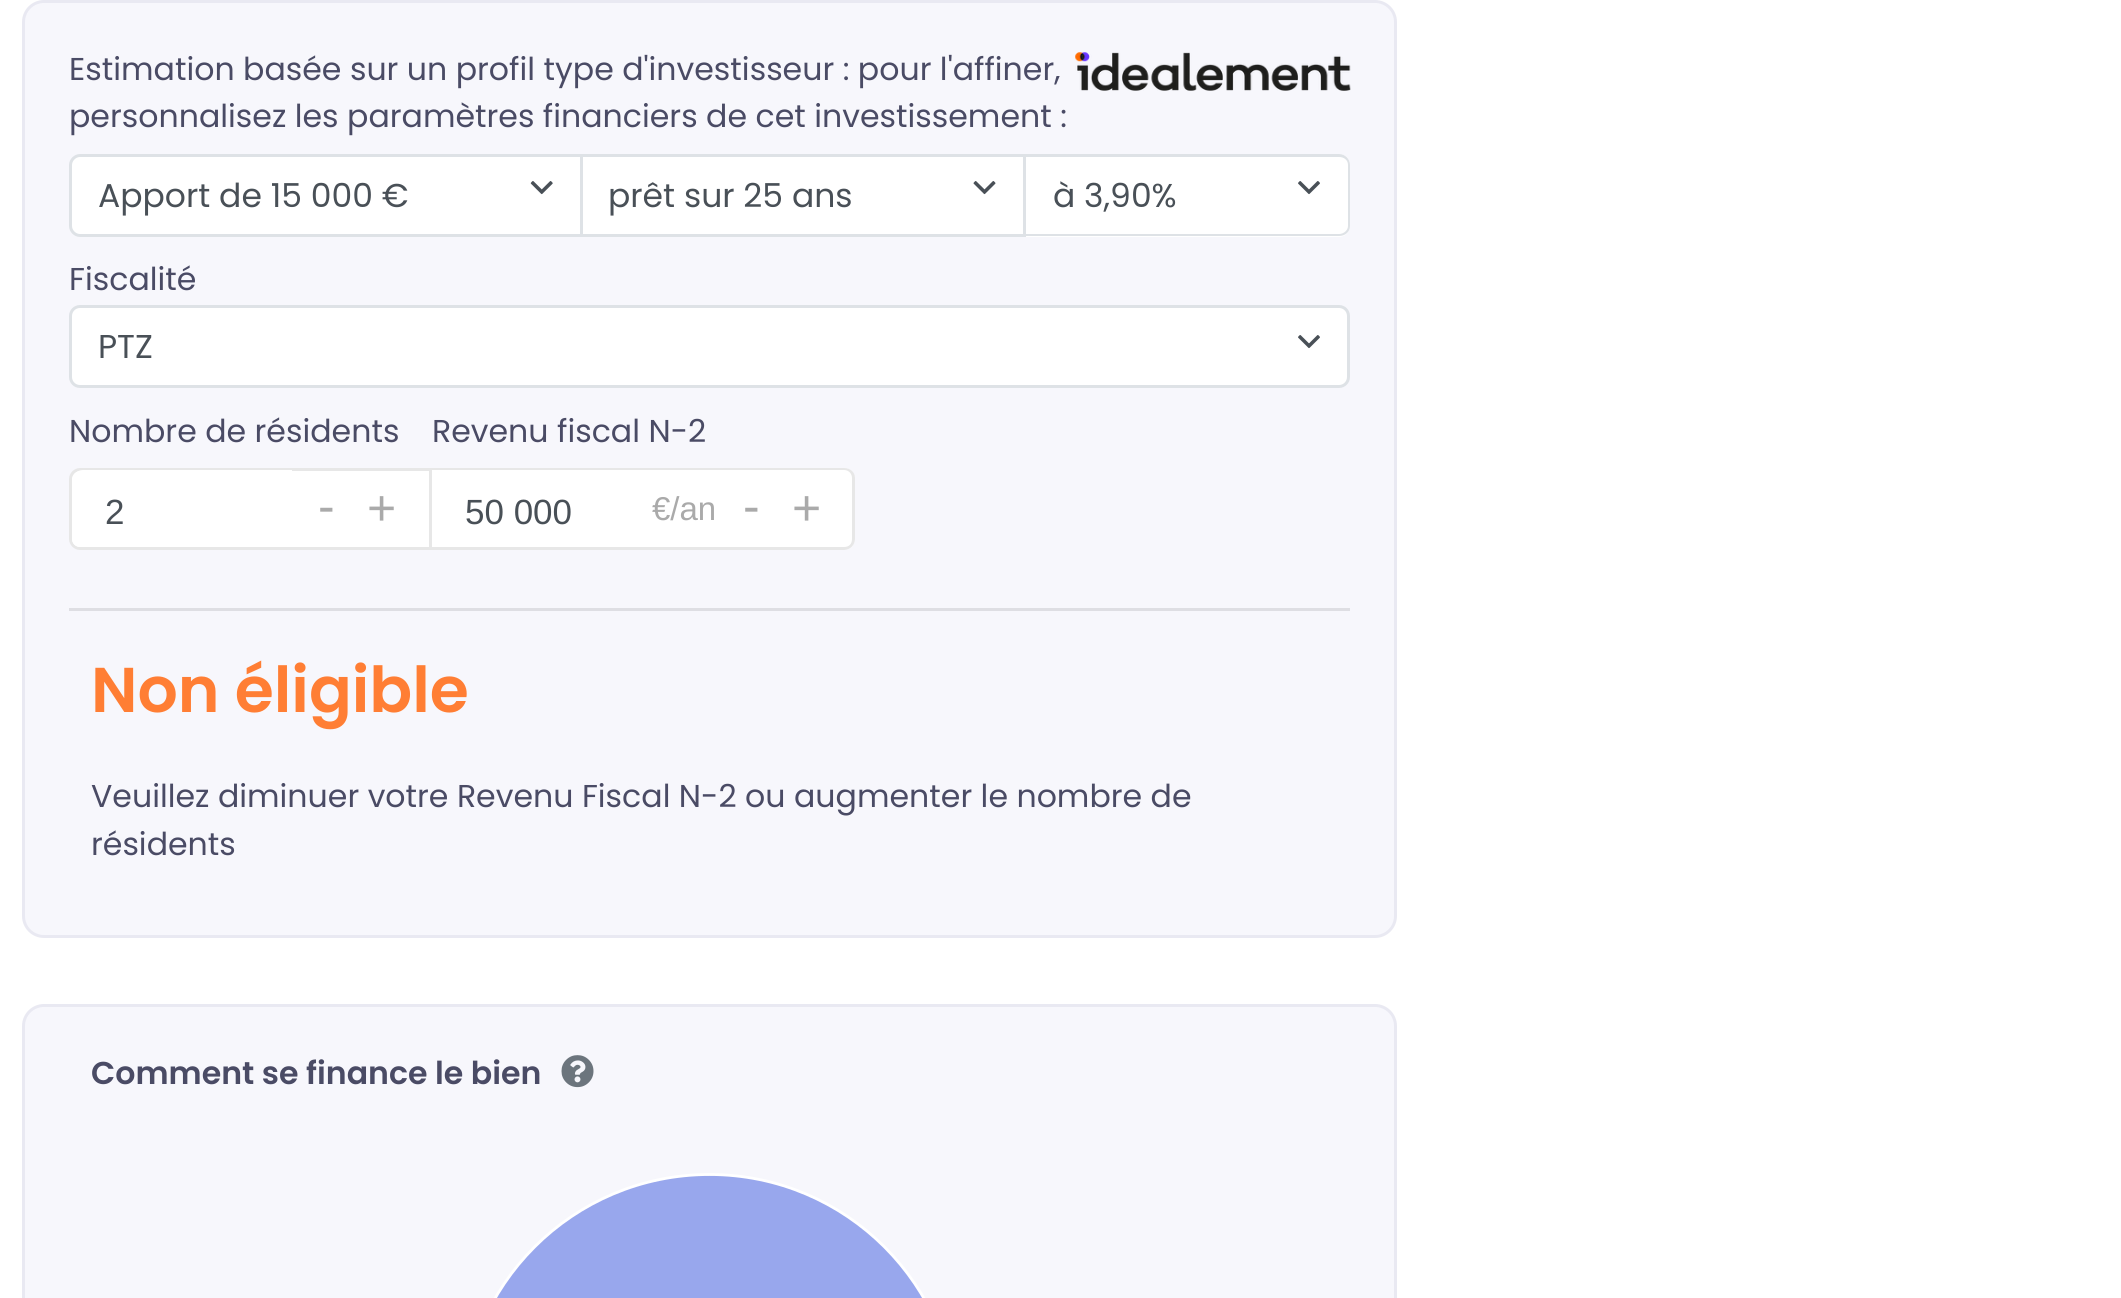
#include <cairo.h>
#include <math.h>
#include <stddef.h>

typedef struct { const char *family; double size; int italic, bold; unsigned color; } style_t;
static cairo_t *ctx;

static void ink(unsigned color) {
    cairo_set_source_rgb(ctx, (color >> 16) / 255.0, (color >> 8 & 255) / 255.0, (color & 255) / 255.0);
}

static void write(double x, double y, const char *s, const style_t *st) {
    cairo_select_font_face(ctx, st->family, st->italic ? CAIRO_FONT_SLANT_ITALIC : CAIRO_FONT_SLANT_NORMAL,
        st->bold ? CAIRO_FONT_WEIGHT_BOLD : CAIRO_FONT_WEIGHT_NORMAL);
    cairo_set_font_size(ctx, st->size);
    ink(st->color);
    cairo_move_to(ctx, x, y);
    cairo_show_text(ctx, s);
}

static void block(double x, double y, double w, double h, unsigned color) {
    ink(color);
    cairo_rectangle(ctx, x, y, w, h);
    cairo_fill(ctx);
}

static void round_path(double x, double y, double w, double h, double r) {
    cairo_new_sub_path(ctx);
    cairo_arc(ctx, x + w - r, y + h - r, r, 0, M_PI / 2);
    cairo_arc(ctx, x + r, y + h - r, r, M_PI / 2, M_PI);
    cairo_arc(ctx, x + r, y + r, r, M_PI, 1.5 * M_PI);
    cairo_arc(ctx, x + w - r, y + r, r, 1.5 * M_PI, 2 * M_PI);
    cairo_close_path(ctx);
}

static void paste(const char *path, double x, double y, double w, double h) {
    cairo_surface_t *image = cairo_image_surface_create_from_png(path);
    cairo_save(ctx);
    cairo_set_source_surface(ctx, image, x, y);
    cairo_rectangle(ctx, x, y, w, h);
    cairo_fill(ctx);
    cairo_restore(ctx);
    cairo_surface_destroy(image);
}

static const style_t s1 = {"Poppins", 31.6, 0, 0, 0x4a4b65};
static const style_t s2 = {"Poppins", 33, 0, 0, 0x495057};
static const style_t s3 = {"Liberation Sans", 35, 0, 0, 0x495057};
static const style_t s4 = {"Liberation Sans", 50, 0, 0, 0xaaaaaa};
static const style_t s5 = {"Liberation Sans", 33, 0, 0, 0xaaaaaa};
static const style_t s6 = {"Poppins SemiBold", 63.25, 0, 0, 0xff7e34};
static const style_t s7 = {"Poppins SemiBold", 31.6, 0, 0, 0x4a4b65};

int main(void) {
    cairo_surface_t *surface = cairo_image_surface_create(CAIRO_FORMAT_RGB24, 2121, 1298);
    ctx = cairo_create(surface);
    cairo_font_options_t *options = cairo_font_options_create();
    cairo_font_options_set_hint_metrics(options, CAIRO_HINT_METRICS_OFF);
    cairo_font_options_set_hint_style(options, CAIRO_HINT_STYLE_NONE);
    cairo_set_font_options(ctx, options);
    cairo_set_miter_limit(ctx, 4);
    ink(0xffffff);
    cairo_paint(ctx);
    ink(0xf7f7fc);
    round_path(23.5, 1.5, 1372, 935, 20.5);
    cairo_fill_preserve(ctx);
    ink(0xe9e9f2);
    cairo_set_line_width(ctx, 3);
    cairo_stroke(ctx);
    write(69, 80, "Estimation basée sur un profil type d'investisseur : pour l'affiner,", &s1);
    write(69, 127, "personnalisez les paramètres financiers de cet investissement :", &s1);
    paste("pic1.png", 1075, 52, 276, 39);
    ink(0xffffff);
    cairo_new_path(ctx);
    cairo_move_to(ctx, 80, 155.5);
    cairo_line_to(ctx, 581.5, 155.5);
    cairo_line_to(ctx, 581.5, 235.5);
    cairo_line_to(ctx, 80, 235.5);
    cairo_curve_to(ctx, 75, 235.5, 70.5, 231, 70.5, 226);
    cairo_line_to(ctx, 70.5, 165);
    cairo_curve_to(ctx, 70.5, 160, 75, 155.5, 80, 155.5);
    cairo_close_path(ctx);
    cairo_fill_preserve(ctx);
    ink(0xdee2e6);
    cairo_stroke(ctx);
    write(98, 207, "Apport de 15 000 €", &s2);
    paste("pic2.png", 530, 181, 23, 14);
    block(583, 157, 440, 77, 0xffffff);
    block(583, 154, 443, 3, 0xdee2e6);
    block(1023, 154, 3, 83, 0xdee2e6);
    block(583, 234, 443, 3, 0xdee2e6);
    write(608, 207, "prêt sur 25 ans", &s2);
    paste("pic3.png", 973, 181, 23, 14);
    ink(0xffffff);
    cairo_new_path(ctx);
    cairo_move_to(ctx, 1026, 154);
    cairo_line_to(ctx, 1339, 154);
    cairo_curve_to(ctx, 1345, 154, 1350, 159, 1350, 165);
    cairo_line_to(ctx, 1350, 226);
    cairo_curve_to(ctx, 1350, 232, 1345, 237, 1339, 237);
    cairo_line_to(ctx, 1026, 237);
    cairo_close_path(ctx);
    cairo_fill(ctx);
    ink(0xdee2e6);
    cairo_set_fill_rule(ctx, CAIRO_FILL_RULE_EVEN_ODD);
    cairo_new_path(ctx);
    cairo_move_to(ctx, 1026, 154);
    cairo_line_to(ctx, 1339, 154);
    cairo_curve_to(ctx, 1345, 154, 1350, 159, 1350, 165);
    cairo_line_to(ctx, 1350, 226);
    cairo_curve_to(ctx, 1350, 232, 1345, 236, 1339, 236);
    cairo_line_to(ctx, 1026, 236);
    cairo_close_path(ctx);
    cairo_move_to(ctx, 1026, 157);
    cairo_line_to(ctx, 1339, 157);
    cairo_curve_to(ctx, 1344, 157, 1348, 160, 1348, 165);
    cairo_line_to(ctx, 1348, 226);
    cairo_curve_to(ctx, 1348, 230, 1344, 234, 1339, 234);
    cairo_line_to(ctx, 1026, 234);
    cairo_close_path(ctx);
    cairo_fill(ctx);
    write(1053, 207, "à 3,90%", &s2);
    paste("pic4.png", 1298, 181, 22, 14);
    write(69, 290, "Fiscalité", &s1);
    ink(0xffffff);
    round_path(70.5, 306.5, 1278, 80, 9.5);
    cairo_fill_preserve(ctx);
    ink(0xdee2e6);
    cairo_stroke(ctx);
    write(98, 358, "PTZ", &s2);
    paste("pic4.png", 1298, 335, 22, 14);
    write(69, 442, "Nombre de résidents", &s1);
    ink(0xffffff);
    cairo_new_path(ctx);
    cairo_move_to(ctx, 80, 469.5);
    cairo_line_to(ctx, 430.5, 469.5);
    cairo_line_to(ctx, 430.5, 548.5);
    cairo_line_to(ctx, 80, 548.5);
    cairo_curve_to(ctx, 75, 548.5, 70.5, 544, 70.5, 539);
    cairo_line_to(ctx, 70.5, 479);
    cairo_curve_to(ctx, 70.5, 474, 75, 469.5, 80, 469.5);
    cairo_close_path(ctx);
    cairo_fill_preserve(ctx);
    ink(0xe7e7e7);
    cairo_stroke(ctx);
    cairo_save(ctx);
    cairo_set_fill_rule(ctx, CAIRO_FILL_RULE_WINDING);
    cairo_new_path(ctx);
    cairo_move_to(ctx, 80, 470);
    cairo_line_to(ctx, 429, 470);
    cairo_line_to(ctx, 429, 547);
    cairo_line_to(ctx, 80, 547);
    cairo_curve_to(ctx, 75.5, 547, 72, 543.5, 72, 539);
    cairo_line_to(ctx, 72, 478);
    cairo_curve_to(ctx, 72, 473.5, 75.5, 470, 80, 470);
    cairo_close_path(ctx);
    cairo_clip(ctx);
    ink(0xffffff);
    cairo_new_path(ctx);
    cairo_move_to(ctx, 83, 470);
    cairo_line_to(ctx, 292, 470);
    cairo_line_to(ctx, 292, 553);
    cairo_line_to(ctx, 83, 553);
    cairo_curve_to(ctx, 77, 553, 72, 548, 72, 542);
    cairo_line_to(ctx, 72, 481);
    cairo_curve_to(ctx, 72, 475, 77, 470, 83, 470);
    cairo_close_path(ctx);
    cairo_fill(ctx);
    cairo_restore(ctx);
    write(105, 524, "2", &s3);
    write(318, 523, "-", &s4);
    write(367, 525, "+", &s4);
    write(432, 442, "Revenu fiscal N-2", &s1);
    ink(0xffffff);
    cairo_new_path(ctx);
    cairo_move_to(ctx, 432, 468);
    cairo_line_to(ctx, 844, 468);
    cairo_curve_to(ctx, 850, 468, 855, 473, 855, 479);
    cairo_line_to(ctx, 855, 539);
    cairo_curve_to(ctx, 855, 545, 850, 550, 844, 550);
    cairo_line_to(ctx, 432, 550);
    cairo_close_path(ctx);
    cairo_fill(ctx);
    ink(0xe7e7e7);
    cairo_new_path(ctx);
    cairo_move_to(ctx, 432, 468);
    cairo_line_to(ctx, 844, 468);
    cairo_curve_to(ctx, 850, 468, 855, 472, 855, 478);
    cairo_line_to(ctx, 855, 539);
    cairo_curve_to(ctx, 855, 545, 850, 550, 844, 550);
    cairo_line_to(ctx, 432, 550);
    cairo_close_path(ctx);
    cairo_move_to(ctx, 432, 470);
    cairo_line_to(ctx, 844, 470);
    cairo_curve_to(ctx, 849, 470, 852, 474, 852, 478);
    cairo_line_to(ctx, 852, 539);
    cairo_curve_to(ctx, 852, 544, 849, 547, 844, 547);
    cairo_line_to(ctx, 432, 547);
    cairo_close_path(ctx);
    cairo_fill(ctx);
    write(465, 524, "50 000", &s3);
    write(652, 520, "€/an", &s5);
    write(743, 523, "-", &s4);
    write(792, 525, "+", &s4);
    block(69, 608, 1281, 3, 0xdedee3);
    write(91, 712, "Non éligible", &s6);
    write(91, 807, "Veuillez diminuer votre Revenu Fiscal N-2 ou augmenter le nombre de", &s1);
    write(91, 855, "résidents", &s1);
    ink(0xf7f7fc);
    round_path(23.5, 1005.5, 1372, 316, 20.5);
    cairo_fill_preserve(ctx);
    ink(0xe9e9f2);
    cairo_stroke(ctx);
    write(91, 1084, "Comment se finance le bien", &s7);
    paste("pic5.png", 561, 1055, 33, 33);
    ink(0x98a7ed);
    cairo_arc(ctx, 709.5, 1422, 247.5, 0, 2 * M_PI);
    cairo_fill_preserve(ctx);
    ink(0xffffff);
    cairo_set_line_width(ctx, 2.8);
    cairo_stroke(ctx);
    cairo_surface_write_to_png(surface, "screenshot.png");
    cairo_font_options_destroy(options);
    cairo_destroy(ctx);
    cairo_surface_destroy(surface);
    return 0;
}
